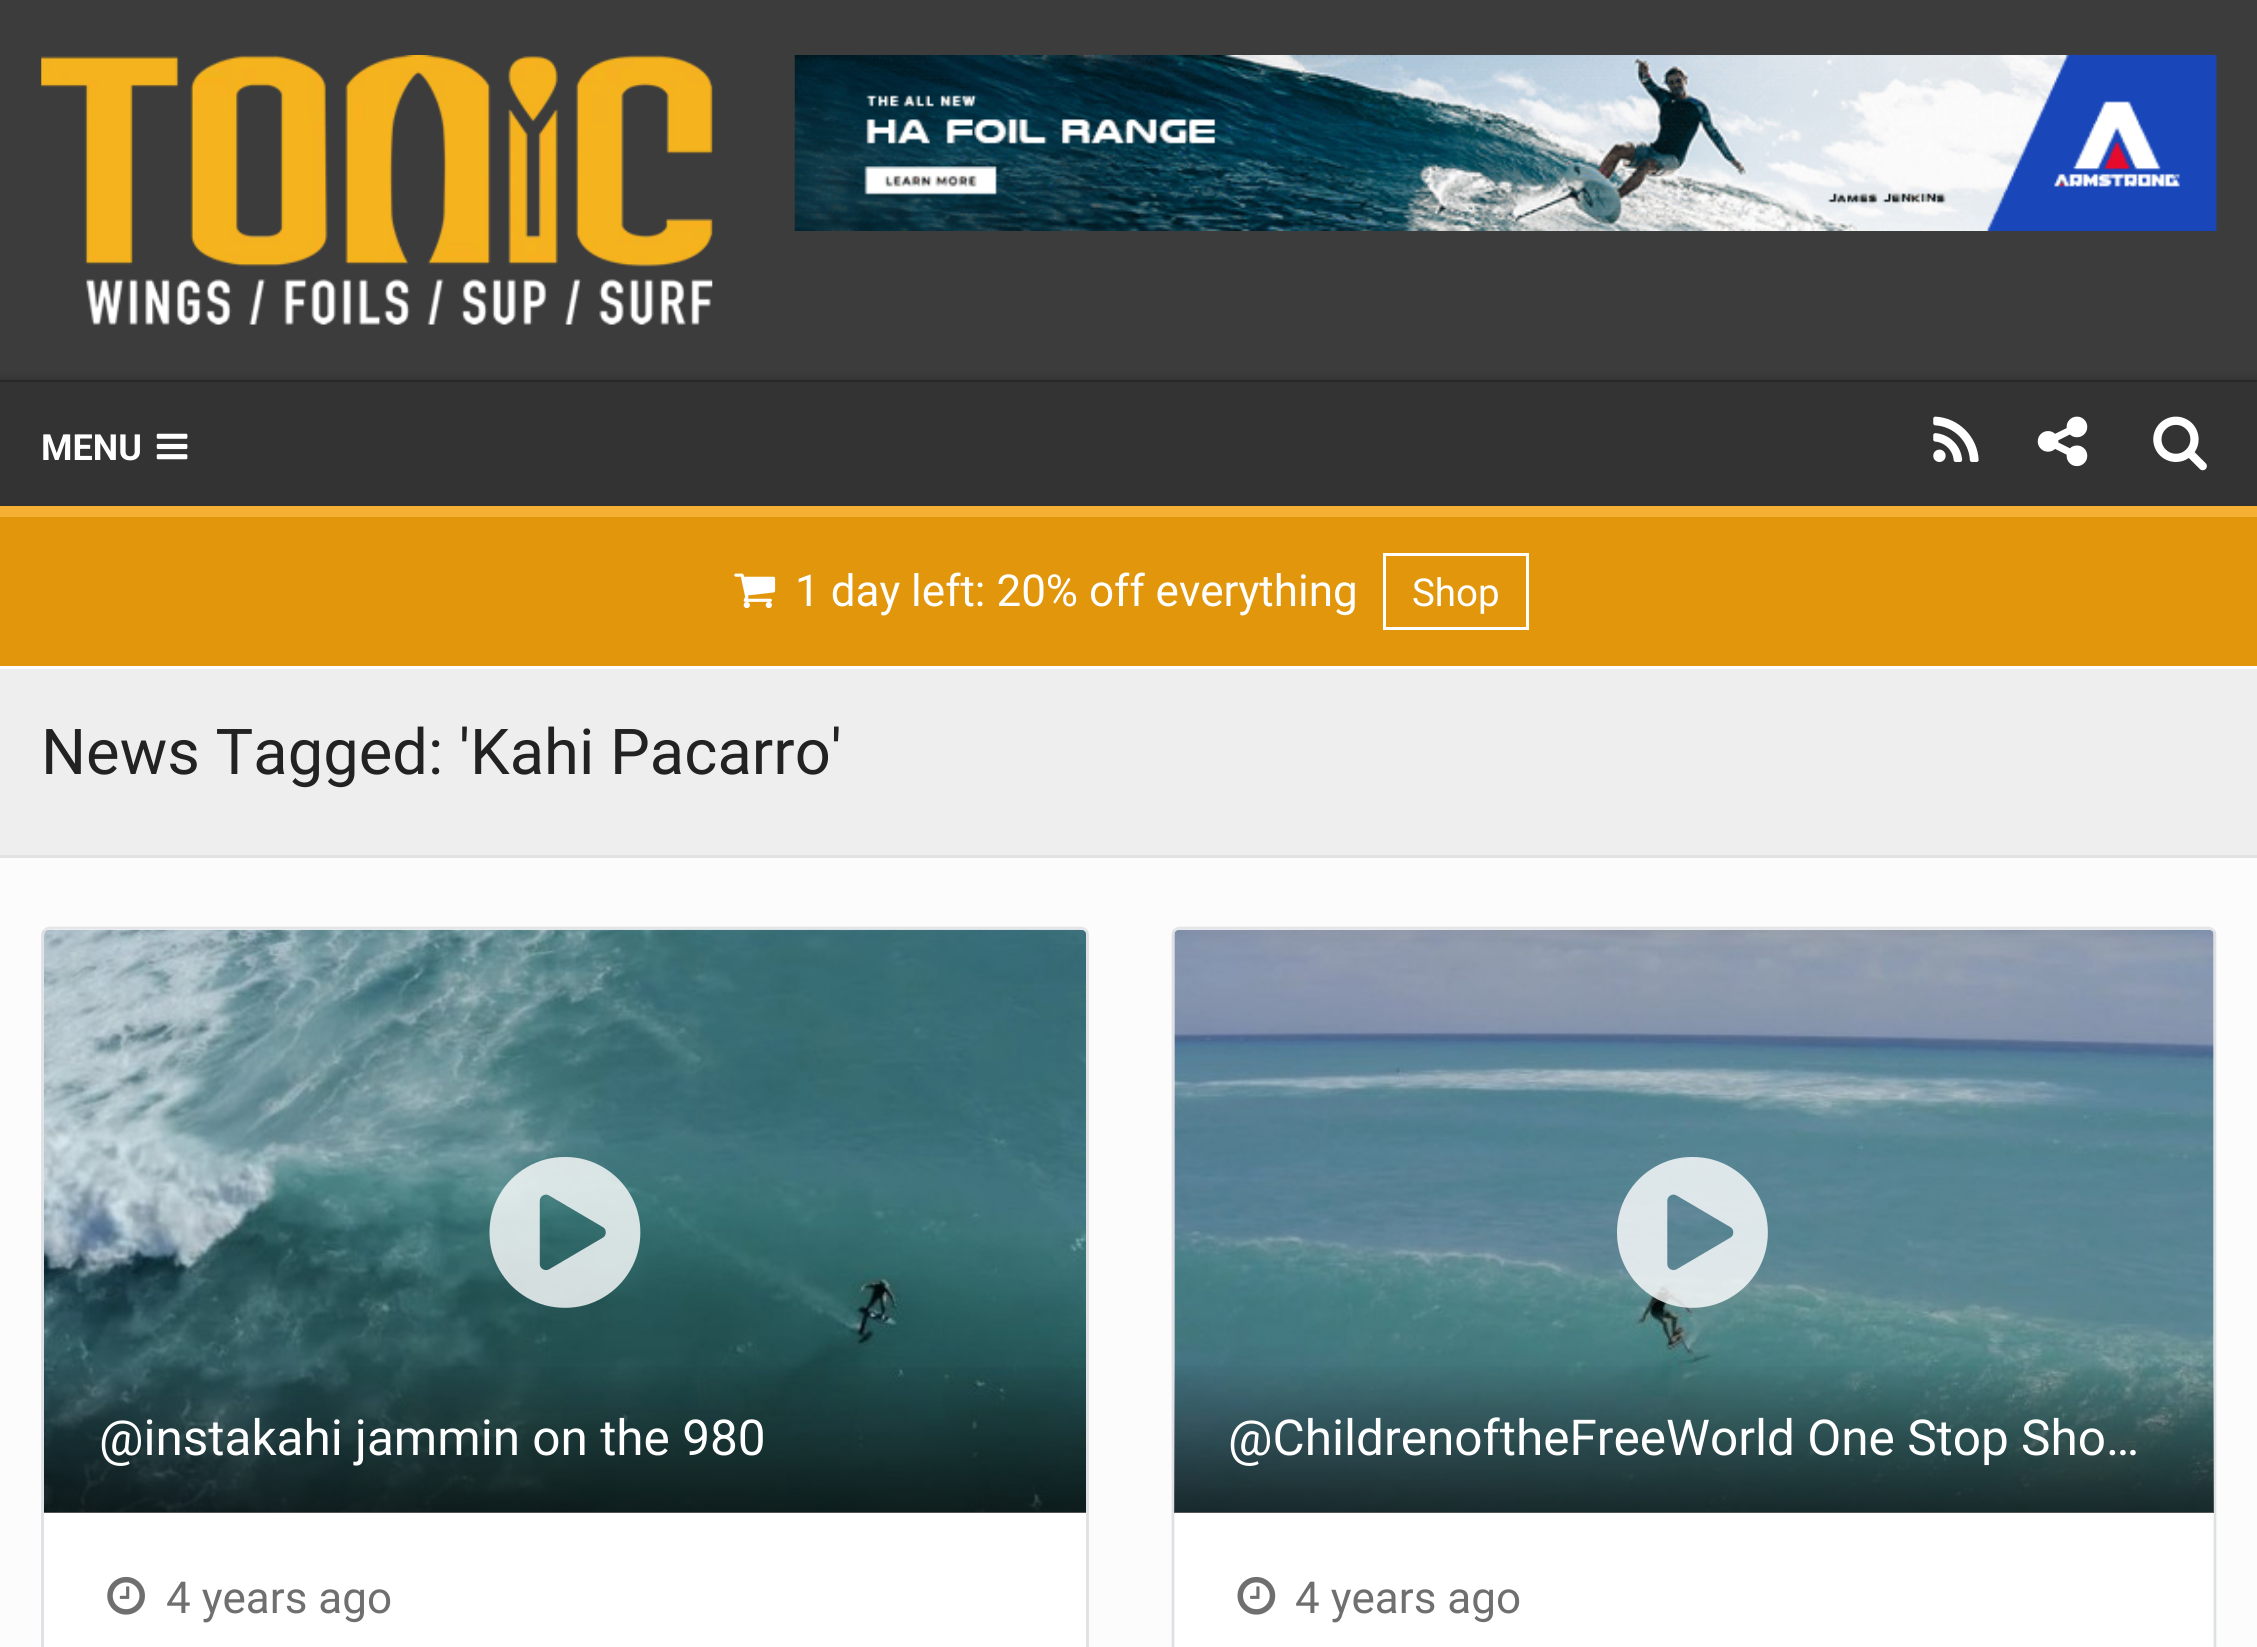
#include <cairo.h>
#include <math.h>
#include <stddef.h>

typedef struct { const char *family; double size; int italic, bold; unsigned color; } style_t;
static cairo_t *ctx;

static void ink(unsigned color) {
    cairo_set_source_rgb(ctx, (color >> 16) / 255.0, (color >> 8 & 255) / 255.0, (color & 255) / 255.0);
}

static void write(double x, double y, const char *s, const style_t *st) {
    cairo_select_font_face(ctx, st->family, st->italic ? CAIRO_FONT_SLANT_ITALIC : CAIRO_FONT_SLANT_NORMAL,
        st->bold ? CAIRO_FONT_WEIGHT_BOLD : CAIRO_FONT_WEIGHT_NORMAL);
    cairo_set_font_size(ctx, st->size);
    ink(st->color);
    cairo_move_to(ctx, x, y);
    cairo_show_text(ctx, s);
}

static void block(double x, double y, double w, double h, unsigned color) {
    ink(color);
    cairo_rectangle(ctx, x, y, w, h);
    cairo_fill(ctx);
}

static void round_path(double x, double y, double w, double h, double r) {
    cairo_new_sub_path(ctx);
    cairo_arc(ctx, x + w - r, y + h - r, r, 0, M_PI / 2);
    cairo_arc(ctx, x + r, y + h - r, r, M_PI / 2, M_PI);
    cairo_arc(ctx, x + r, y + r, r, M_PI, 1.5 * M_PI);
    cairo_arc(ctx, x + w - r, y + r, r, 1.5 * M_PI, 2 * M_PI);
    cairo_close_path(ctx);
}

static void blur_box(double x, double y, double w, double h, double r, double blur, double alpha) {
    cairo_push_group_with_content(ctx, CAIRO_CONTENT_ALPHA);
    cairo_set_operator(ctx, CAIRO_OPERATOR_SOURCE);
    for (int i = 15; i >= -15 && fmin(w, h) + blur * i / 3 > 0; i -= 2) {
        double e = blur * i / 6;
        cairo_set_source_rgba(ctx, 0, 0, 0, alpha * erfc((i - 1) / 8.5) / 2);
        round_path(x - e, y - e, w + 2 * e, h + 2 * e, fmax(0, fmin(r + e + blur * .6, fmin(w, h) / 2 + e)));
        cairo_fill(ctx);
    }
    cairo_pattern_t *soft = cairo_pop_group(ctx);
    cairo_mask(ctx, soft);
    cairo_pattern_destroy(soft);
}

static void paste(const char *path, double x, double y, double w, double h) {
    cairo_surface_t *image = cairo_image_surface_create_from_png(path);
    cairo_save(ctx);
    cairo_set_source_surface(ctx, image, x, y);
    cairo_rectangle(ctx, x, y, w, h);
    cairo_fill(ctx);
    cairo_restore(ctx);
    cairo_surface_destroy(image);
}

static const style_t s1 = {"Roboto", 36, 0, 1, 0xffffff};
static const style_t s2 = {"Roboto", 44, 0, 0, 0xffffff};
static const style_t s3 = {"Roboto", 38.5, 0, 0, 0xffffff};
static const style_t s4 = {"Roboto", 63.25, 0, 0, 0x222222};
static const style_t s5 = {"Roboto", 49.5, 0, 0, 0xffffff};
static const style_t s6 = {"Roboto", 44, 0, 0, 0x6f6f6f};

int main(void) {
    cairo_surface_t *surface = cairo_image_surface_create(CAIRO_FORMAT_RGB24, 2257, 1647);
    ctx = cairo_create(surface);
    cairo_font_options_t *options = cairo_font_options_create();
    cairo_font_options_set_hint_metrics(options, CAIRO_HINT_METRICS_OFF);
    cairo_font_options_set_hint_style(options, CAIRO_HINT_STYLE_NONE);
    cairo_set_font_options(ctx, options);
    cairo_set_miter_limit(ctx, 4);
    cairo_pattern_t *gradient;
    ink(0xfcfcfc);
    cairo_paint(ctx);
    block(0, 0, 2257, 380, 0x3c3c3c);
    block(0, 380, 2257, 2, 0x2d2d2d);
    paste("pic1.png", 41, 55, 672, 270);
    paste("pic2.png", 794, 55, 1423, 176);
    ink(0x1b1b1b);
    blur_box(0, 385, 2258, 135, 0, 7, 1);
    block(0, 382, 2257, 124, 0x333333);
    block(0, 506, 2257, 11, 0xf6b034);
    write(41, 460, "MENU", &s1);
    paste("pic3.png", 156, 433, 32, 27);
    paste("pic4.png", 1933, 416, 46, 46);
    paste("pic5.png", 2037, 416, 51, 51);
    paste("pic6.png", 2153, 416, 54, 55);
    block(0, 517, 2257, 149, 0xe1960b);
    paste("pic7.png", 734, 573, 42, 36);
    write(795, 606, "1 day left: 20% off everything", &s2);
    cairo_rectangle(ctx, 1384.5, 554.5, 143, 74);
    cairo_set_line_width(ctx, 3);
    cairo_stroke(ctx);
    write(1412, 606, "Shop", &s3);
    block(0, 669, 2257, 186, 0xeeeeee);
    block(0, 666, 2257, 3, 0xffffff);
    block(0, 855, 2257, 3, 0xe2e2e2);
    write(41, 774, "News Tagged: 'Kahi Pacarro'", &s4);
    ink(0xffffff);
    round_path(41, 927, 1048, 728, 8);
    cairo_fill(ctx);
    cairo_new_path(ctx);
    cairo_move_to(ctx, 44.5, 930);
    cairo_curve_to(ctx, 46, 929, 47.5, 928, 49.5, 928);
    cairo_line_to(ctx, 1081, 928);
    cairo_curve_to(ctx, 1082.5, 928, 1084.5, 929, 1085.5, 930);
    ink(0xe5e6e9);
    cairo_set_line_width(ctx, 2.8);
    cairo_stroke(ctx);
    cairo_new_path(ctx);
    cairo_move_to(ctx, 1085.5, 930);
    cairo_curve_to(ctx, 1087, 931.5, 1087.5, 933, 1087.5, 935);
    cairo_line_to(ctx, 1087.5, 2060);
    cairo_curve_to(ctx, 1087.5, 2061.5, 1087, 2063.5, 1085.5, 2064.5);
    ink(0xdfe0e4);
    cairo_stroke(ctx);
    cairo_new_path(ctx);
    cairo_move_to(ctx, 44.5, 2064.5);
    cairo_curve_to(ctx, 43.5, 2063.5, 42.5, 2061.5, 42.5, 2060);
    cairo_line_to(ctx, 42.5, 935);
    cairo_curve_to(ctx, 42.5, 933, 43.5, 931.5, 44.5, 930);
    cairo_stroke(ctx);
    paste("pic8.png", 44, 929, 1042, 584);
    paste("pic9.png", 489, 1157, 152, 151);
    gradient = cairo_pattern_create_linear(565, 1513, 565, 1361);
    cairo_pattern_add_color_stop_rgba(gradient, 0, 0, 0, 0, 0.6);
    cairo_pattern_add_color_stop_rgba(gradient, 1, 0, 0, 0, 0);
    cairo_set_source(ctx, gradient);
    cairo_pattern_destroy(gradient);
    cairo_rectangle(ctx, 44, 1366, 1042, 147);
    cairo_fill(ctx);
    write(99, 1455, "@instakahi jammin on the 980", &s5);
    paste("pic10.png", 107, 1576, 38, 39);
    write(166, 1613, "4 years ago", &s6);
    ink(0xffffff);
    round_path(1172, 927, 1045, 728, 8);
    cairo_fill(ctx);
    cairo_new_path(ctx);
    cairo_move_to(ctx, 1175, 930);
    cairo_curve_to(ctx, 1176, 929, 1178, 928, 1180, 928);
    cairo_line_to(ctx, 2208, 928);
    cairo_curve_to(ctx, 2210, 928, 2212, 929, 2213, 930);
    ink(0xe5e6e9);
    cairo_stroke(ctx);
    cairo_new_path(ctx);
    cairo_move_to(ctx, 2213, 930);
    cairo_curve_to(ctx, 2214.5, 931.5, 2215, 933, 2215, 935);
    cairo_line_to(ctx, 2215, 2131);
    cairo_curve_to(ctx, 2215, 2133, 2214.5, 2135, 2213, 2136);
    ink(0xdfe0e4);
    cairo_stroke(ctx);
    cairo_new_path(ctx);
    cairo_move_to(ctx, 1175, 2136);
    cairo_curve_to(ctx, 1173.5, 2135, 1173, 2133, 1173, 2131);
    cairo_line_to(ctx, 1173, 935);
    cairo_curve_to(ctx, 1173, 933, 1173.5, 931.5, 1175, 930);
    cairo_stroke(ctx);
    paste("pic11.png", 1174, 929, 1040, 584);
    paste("pic12.png", 1617, 1157, 151, 151);
    gradient = cairo_pattern_create_linear(1694, 1513, 1694, 1361);
    cairo_pattern_add_color_stop_rgba(gradient, 0, 0, 0, 0, 0.6);
    cairo_pattern_add_color_stop_rgba(gradient, 1, 0, 0, 0, 0);
    cairo_set_source(ctx, gradient);
    cairo_pattern_destroy(gradient);
    cairo_rectangle(ctx, 1174, 1366, 1040, 147);
    cairo_fill(ctx);
    write(1228, 1455, "@ChildrenoftheFreeWorld One Stop Sho…", &s5);
    paste("pic13.png", 1237, 1576, 39, 39);
    write(1295, 1613, "4 years ago", &s6);
    cairo_surface_write_to_png(surface, "screenshot.png");
    cairo_font_options_destroy(options);
    cairo_destroy(ctx);
    cairo_surface_destroy(surface);
    return 0;
}
